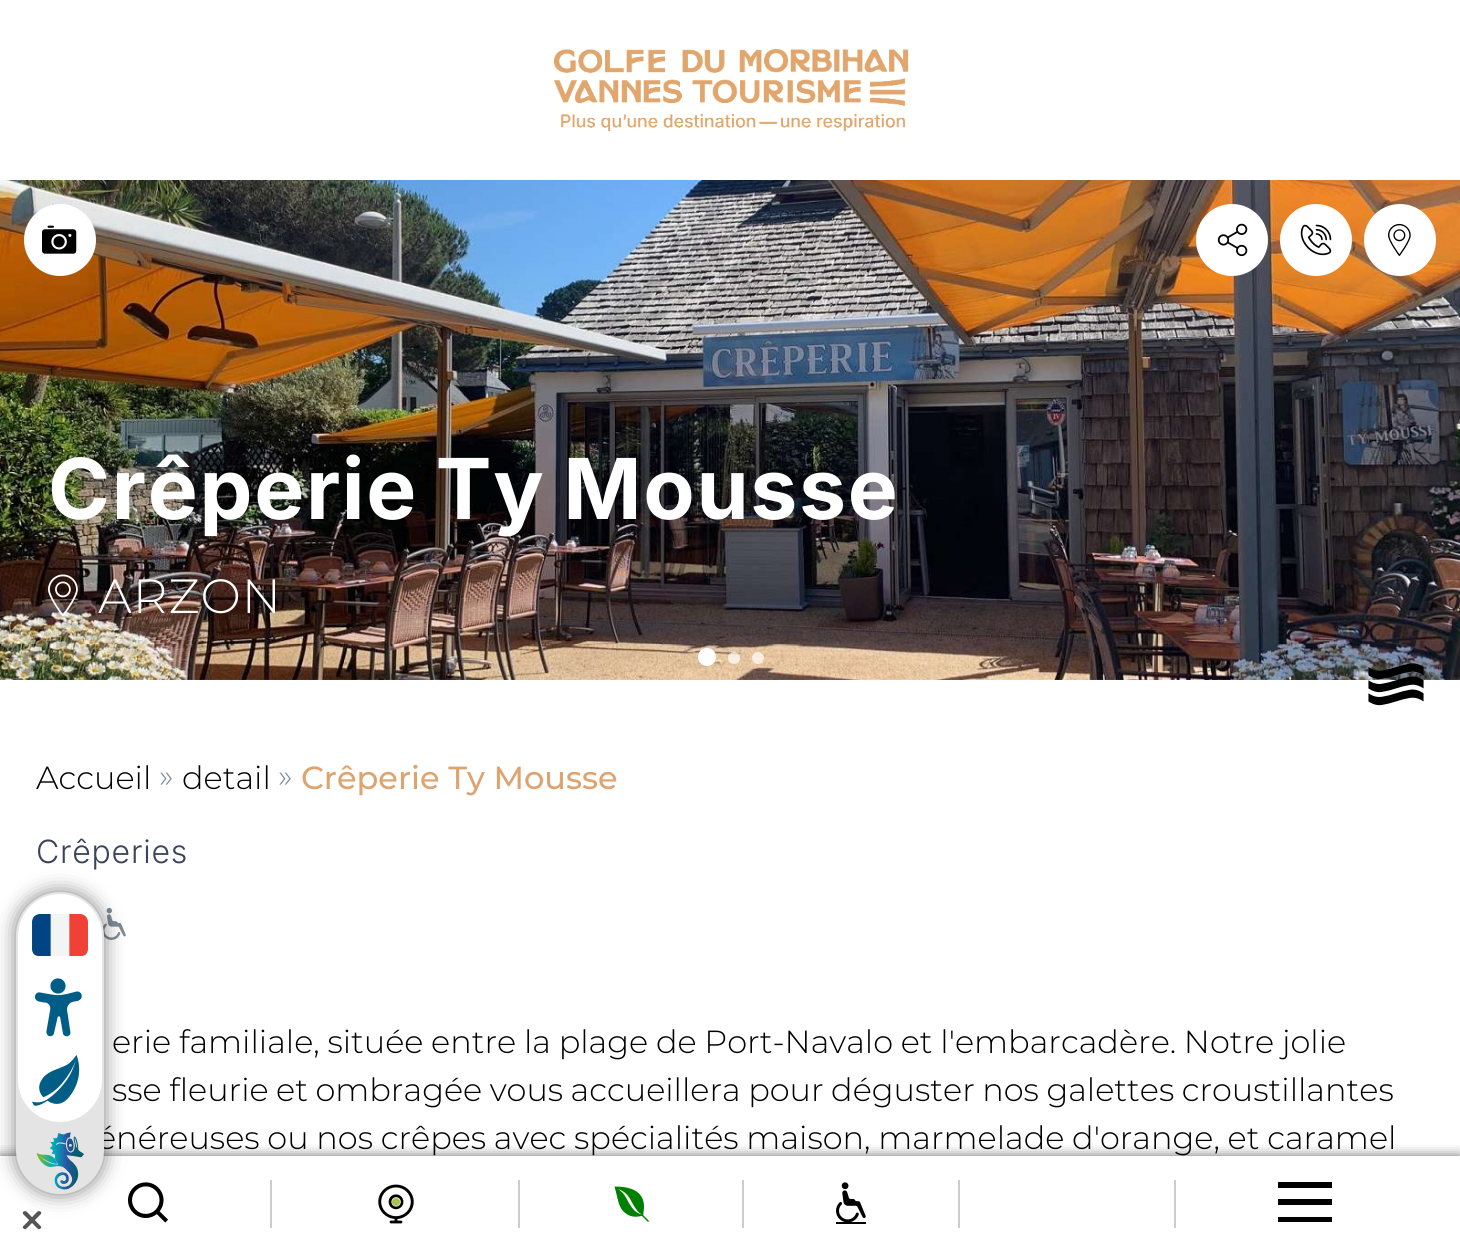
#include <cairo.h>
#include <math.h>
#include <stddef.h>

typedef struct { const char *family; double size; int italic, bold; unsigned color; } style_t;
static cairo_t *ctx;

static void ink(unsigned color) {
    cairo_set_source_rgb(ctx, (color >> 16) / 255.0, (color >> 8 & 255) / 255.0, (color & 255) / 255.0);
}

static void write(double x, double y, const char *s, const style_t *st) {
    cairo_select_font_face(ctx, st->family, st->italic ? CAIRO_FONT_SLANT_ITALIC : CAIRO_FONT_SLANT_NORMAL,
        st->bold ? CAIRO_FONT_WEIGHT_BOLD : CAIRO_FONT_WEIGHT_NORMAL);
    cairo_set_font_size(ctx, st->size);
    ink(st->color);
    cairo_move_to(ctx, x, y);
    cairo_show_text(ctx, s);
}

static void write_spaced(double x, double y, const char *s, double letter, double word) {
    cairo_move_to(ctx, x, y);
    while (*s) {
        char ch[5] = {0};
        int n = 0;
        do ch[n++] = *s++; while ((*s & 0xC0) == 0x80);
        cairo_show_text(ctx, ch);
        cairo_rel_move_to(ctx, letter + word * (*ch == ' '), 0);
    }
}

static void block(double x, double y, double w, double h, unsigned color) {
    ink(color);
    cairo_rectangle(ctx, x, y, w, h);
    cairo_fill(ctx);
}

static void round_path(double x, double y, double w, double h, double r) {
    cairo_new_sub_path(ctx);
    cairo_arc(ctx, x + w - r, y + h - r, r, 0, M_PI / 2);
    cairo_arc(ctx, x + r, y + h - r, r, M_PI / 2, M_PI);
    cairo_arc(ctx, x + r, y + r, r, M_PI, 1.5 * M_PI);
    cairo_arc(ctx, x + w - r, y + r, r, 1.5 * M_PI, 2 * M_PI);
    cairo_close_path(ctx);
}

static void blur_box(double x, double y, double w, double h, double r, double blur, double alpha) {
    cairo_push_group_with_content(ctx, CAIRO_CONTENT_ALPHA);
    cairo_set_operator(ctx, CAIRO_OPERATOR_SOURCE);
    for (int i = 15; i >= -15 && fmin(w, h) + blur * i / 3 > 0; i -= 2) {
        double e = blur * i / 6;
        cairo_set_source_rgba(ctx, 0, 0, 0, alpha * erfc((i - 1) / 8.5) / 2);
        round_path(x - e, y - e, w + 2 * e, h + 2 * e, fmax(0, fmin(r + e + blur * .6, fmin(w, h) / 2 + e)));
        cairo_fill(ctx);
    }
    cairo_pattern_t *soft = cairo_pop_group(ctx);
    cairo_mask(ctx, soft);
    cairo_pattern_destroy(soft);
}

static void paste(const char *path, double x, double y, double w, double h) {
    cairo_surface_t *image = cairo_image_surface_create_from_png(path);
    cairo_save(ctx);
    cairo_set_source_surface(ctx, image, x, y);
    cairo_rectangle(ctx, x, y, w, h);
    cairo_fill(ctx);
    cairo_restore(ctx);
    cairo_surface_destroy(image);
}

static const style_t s1 = {"Montserrat Light", 32, 0, 0, 0x000000};
static const style_t s2 = {"Montserrat Light", 32, 0, 0, 0x7d8b96};
static const style_t s3 = {"Montserrat Medium", 32, 0, 0, 0xdda46f};

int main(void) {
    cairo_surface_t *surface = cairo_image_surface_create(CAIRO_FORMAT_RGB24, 1460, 1252);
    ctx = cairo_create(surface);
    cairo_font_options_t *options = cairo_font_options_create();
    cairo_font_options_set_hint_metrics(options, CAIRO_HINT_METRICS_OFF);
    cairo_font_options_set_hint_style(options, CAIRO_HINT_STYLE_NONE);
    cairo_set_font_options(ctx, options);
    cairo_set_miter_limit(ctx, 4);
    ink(0xffffff);
    cairo_paint(ctx);
    paste("pic1.png", 553, 49, 356, 82);
    paste("pic2.png", 0, 180, 1460, 500);
    ink(0xffffff);
    cairo_arc(ctx, 60, 240, 36, 0, 2 * M_PI);
    cairo_fill(ctx);
    paste("pic3.png", 42, 225, 35, 29);
    cairo_arc(ctx, 707, 657, 9, 0, 2 * M_PI);
    cairo_fill(ctx);
    cairo_set_source_rgba(ctx, 1, 1, 1, 0.7);
    cairo_arc(ctx, 734, 658, 6, 0, 2 * M_PI);
    cairo_fill(ctx);
    cairo_arc(ctx, 758, 658, 6, 0, 2 * M_PI);
    cairo_fill(ctx);
    ink(0xffffff);
    cairo_arc(ctx, 1232, 240, 36, 0, 2 * M_PI);
    cairo_fill(ctx);
    paste("pic4.png", 1217, 223, 31, 34);
    cairo_arc(ctx, 1316, 240, 36, 0, 2 * M_PI);
    cairo_fill(ctx);
    paste("pic5.png", 1300, 224, 32, 32);
    cairo_arc(ctx, 1400, 240, 36, 0, 2 * M_PI);
    cairo_fill(ctx);
    paste("pic6.png", 1388, 223, 23, 33);
    cairo_select_font_face(ctx, "Inter", CAIRO_FONT_SLANT_NORMAL, CAIRO_FONT_WEIGHT_BOLD);
    cairo_set_font_size(ctx, 84);
    write_spaced(48, 519, "Crêperie Ty Mousse", 1.7, -4);
    paste("pic7.png", 48, 574, 30, 43);
    cairo_select_font_face(ctx, "Montserrat Light", CAIRO_FONT_SLANT_NORMAL, CAIRO_FONT_WEIGHT_NORMAL);
    cairo_set_font_size(ctx, 48);
    write_spaced(98, 613, "ARZON", 1, 0);
    paste("pic8.png", 1368, 663, 56, 43);
    write(36, 789, "Accueil", &s1);
    write(159, 787, "»", &s2);
    write(182, 789, "detail", &s1);
    write(278, 787, "»", &s2);
    write(301, 789, "Crêperie Ty Mousse", &s3);
    cairo_select_font_face(ctx, "Inter Light", CAIRO_FONT_SLANT_NORMAL, CAIRO_FONT_WEIGHT_NORMAL);
    ink(0x3b4559);
    write_spaced(36, 863, "Crêperies", 0.75, 0);
    paste("pic9.png", 102, 907, 24, 33);
    cairo_select_font_face(ctx, "Montserrat Light", CAIRO_FONT_SLANT_NORMAL, CAIRO_FONT_WEIGHT_NORMAL);
    ink(0x000000);
    write_spaced(112, 1053, "erie familiale, située entre la plage de Port-Navalo et l'embarcadère. Notre jolie", 0, -0.5);
    write_spaced(112, 1101, "sse fleurie et ombragée vous accueillera pour déguster nos galettes croustillantes", 0, -0.75);
    write_spaced(97, 1149, "énéreuses ou nos crêpes avec spécialités maison, marmelade d'orange, et caramel", 0, -0.5);
    cairo_save(ctx);
    cairo_rectangle(ctx, 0, 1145, 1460, 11);
    cairo_clip(ctx);
    ink(0x000000);
    blur_box(0, 1156, 1460, 96, 0, 6, 0.6);
    cairo_restore(ctx);
    paste("pic10.png", 128, 1182, 40, 41);
    block(270, 1180, 2, 48, 0xcccccc);
    paste("pic11.png", 378, 1184, 36, 40);
    ink(0xa9c24c);
    cairo_arc(ctx, 396, 1202, 4, 0, 2 * M_PI);
    cairo_fill(ctx);
    block(518, 1180, 2, 48, 0xcccccc);
    paste("pic12.png", 614, 1186, 36, 36);
    block(742, 1180, 2, 48, 0xcccccc);
    paste("pic13.png", 836, 1182, 30, 40);
    block(836, 1222, 30, 2, 0x000000);
    block(958, 1180, 2, 48, 0xcccccc);
    block(1174, 1180, 2, 48, 0xcccccc);
    ink(0x000000);
    cairo_new_path(ctx);
    cairo_move_to(ctx, 1278, 1199);
    cairo_line_to(ctx, 1332, 1199);
    cairo_line_to(ctx, 1332, 1205);
    cairo_line_to(ctx, 1278, 1205);
    cairo_close_path(ctx);
    cairo_move_to(ctx, 1278, 1182);
    cairo_line_to(ctx, 1278, 1188);
    cairo_line_to(ctx, 1332, 1188);
    cairo_line_to(ctx, 1332, 1182);
    cairo_close_path(ctx);
    cairo_move_to(ctx, 1278, 1222);
    cairo_line_to(ctx, 1332, 1222);
    cairo_line_to(ctx, 1332, 1217);
    cairo_line_to(ctx, 1278, 1217);
    cairo_close_path(ctx);
    cairo_fill(ctx);
    ink(0x555555);
    cairo_new_path(ctx);
    cairo_move_to(ctx, 23.5, 1211.5);
    cairo_curve_to(ctx, 24.5, 1211, 25.5, 1211, 26.5, 1211.5);
    cairo_line_to(ctx, 40.5, 1226);
    cairo_curve_to(ctx, 41.5, 1226.5, 41.5, 1228, 40.5, 1228.5);
    cairo_curve_to(ctx, 39.5, 1229.5, 38.5, 1229.5, 37.5, 1228.5);
    cairo_line_to(ctx, 23.5, 1214.5);
    cairo_curve_to(ctx, 22.5, 1213.5, 22.5, 1212.5, 23.5, 1211.5);
    cairo_close_path(ctx);
    cairo_fill(ctx);
    cairo_new_path(ctx);
    cairo_move_to(ctx, 40.5, 1211.5);
    cairo_curve_to(ctx, 41.5, 1212.5, 41.5, 1213.5, 40.5, 1214.5);
    cairo_line_to(ctx, 26.5, 1228.5);
    cairo_curve_to(ctx, 25.5, 1229.5, 24.5, 1229.5, 23.5, 1228.5);
    cairo_curve_to(ctx, 22.5, 1228, 22.5, 1226.5, 23.5, 1226);
    cairo_line_to(ctx, 37.5, 1211.5);
    cairo_curve_to(ctx, 38.5, 1211, 39.5, 1211, 40.5, 1211.5);
    cairo_close_path(ctx);
    cairo_fill(ctx);
    ink(0x000000);
    blur_box(16, 892, 88, 302, 44, 10, 0.5);
    ink(0xe4e4e4);
    round_path(16, 892, 88, 302, 44);
    cairo_fill(ctx);
    ink(0xffffff);
    round_path(18, 894, 84, 228, 42);
    cairo_fill(ctx);
    paste("pic14.png", 32, 914, 56, 42);
    paste("pic15.png", 34, 978, 48, 59);
    paste("pic16.png", 32, 1055, 48, 51);
    paste("pic17.png", 36, 1132, 48, 58);
    cairo_surface_write_to_png(surface, "screenshot.png");
    cairo_font_options_destroy(options);
    cairo_destroy(ctx);
    cairo_surface_destroy(surface);
    return 0;
}
